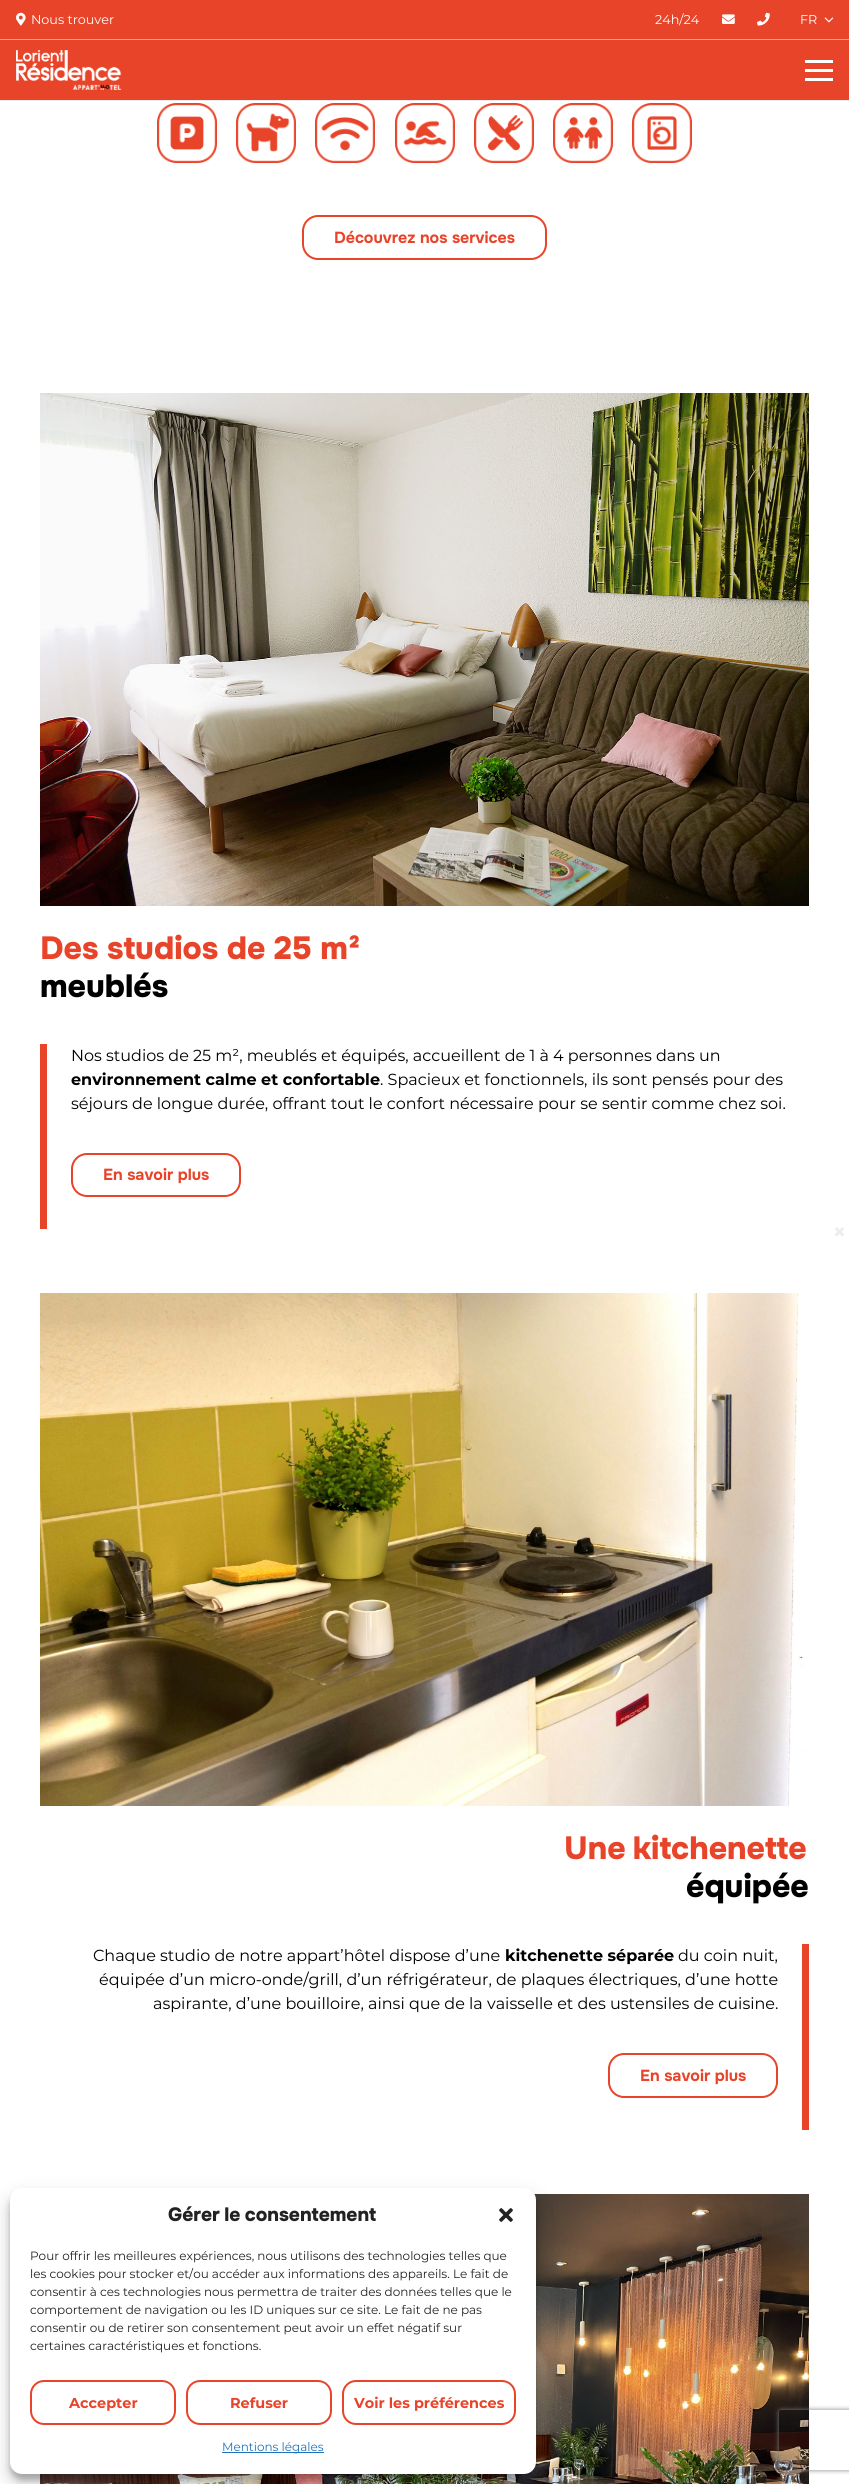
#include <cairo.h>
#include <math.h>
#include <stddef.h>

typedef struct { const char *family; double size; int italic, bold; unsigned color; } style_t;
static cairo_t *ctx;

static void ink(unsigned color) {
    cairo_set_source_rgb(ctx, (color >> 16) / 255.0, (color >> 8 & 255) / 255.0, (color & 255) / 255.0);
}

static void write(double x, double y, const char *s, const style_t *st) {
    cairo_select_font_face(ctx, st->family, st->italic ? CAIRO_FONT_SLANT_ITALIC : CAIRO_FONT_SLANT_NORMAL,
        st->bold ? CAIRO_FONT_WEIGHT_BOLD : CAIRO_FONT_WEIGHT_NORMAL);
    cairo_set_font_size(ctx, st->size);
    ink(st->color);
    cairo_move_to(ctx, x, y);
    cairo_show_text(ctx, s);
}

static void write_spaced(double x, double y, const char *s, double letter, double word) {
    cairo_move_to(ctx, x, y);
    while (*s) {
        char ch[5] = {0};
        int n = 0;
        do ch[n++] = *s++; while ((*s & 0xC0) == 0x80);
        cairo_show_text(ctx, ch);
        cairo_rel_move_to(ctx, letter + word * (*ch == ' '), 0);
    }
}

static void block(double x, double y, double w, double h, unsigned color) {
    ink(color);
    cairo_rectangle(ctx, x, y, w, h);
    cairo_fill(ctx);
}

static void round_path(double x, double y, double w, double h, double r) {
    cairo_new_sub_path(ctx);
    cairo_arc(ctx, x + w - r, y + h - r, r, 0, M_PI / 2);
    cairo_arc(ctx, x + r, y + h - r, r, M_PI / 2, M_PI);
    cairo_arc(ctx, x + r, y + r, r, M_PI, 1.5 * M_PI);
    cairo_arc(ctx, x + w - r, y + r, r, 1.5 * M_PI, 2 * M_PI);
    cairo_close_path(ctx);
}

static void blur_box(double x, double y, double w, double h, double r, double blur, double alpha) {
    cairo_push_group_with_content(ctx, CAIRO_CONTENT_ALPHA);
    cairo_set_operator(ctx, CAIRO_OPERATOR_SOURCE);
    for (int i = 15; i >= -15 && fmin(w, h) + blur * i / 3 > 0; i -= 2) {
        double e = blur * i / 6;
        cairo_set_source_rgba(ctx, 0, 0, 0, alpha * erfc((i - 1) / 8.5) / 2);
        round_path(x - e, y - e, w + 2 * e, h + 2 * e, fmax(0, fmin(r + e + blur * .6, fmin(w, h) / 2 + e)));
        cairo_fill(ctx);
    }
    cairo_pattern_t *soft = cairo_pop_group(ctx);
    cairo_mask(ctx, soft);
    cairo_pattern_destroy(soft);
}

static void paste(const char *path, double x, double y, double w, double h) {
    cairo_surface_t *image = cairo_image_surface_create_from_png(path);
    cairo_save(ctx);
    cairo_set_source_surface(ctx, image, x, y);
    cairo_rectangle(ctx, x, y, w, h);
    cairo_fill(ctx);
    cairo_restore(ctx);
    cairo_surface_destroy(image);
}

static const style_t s1 = {"Montserrat", 12.75, 0, 0, 0xffffff};
static const style_t s2 = {"Onest", 16, 0, 1, 0xe84429};
static const style_t s3 = {"Onest ExtraBold", 32, 0, 0, 0x000000};
static const style_t s4 = {"Montserrat", 16, 0, 0, 0x000000};
static const style_t s5 = {"Montserrat", 16, 0, 1, 0x000000};
static const style_t s6 = {"Montserrat", 12, 0, 0, 0x222222};
static const style_t s7 = {"Montserrat", 14.4, 0, 1, 0xe84429};
static const style_t s8 = {"Montserrat", 12, 0, 0, 0x1e73be};

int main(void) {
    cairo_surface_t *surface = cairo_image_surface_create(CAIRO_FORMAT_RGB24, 849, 2484);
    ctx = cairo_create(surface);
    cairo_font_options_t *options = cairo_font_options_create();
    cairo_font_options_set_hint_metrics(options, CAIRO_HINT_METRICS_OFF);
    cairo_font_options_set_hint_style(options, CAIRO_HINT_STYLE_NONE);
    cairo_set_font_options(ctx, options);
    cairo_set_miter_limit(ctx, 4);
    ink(0xffffff);
    cairo_paint(ctx);
    block(0, 0, 849, 39, 0xe84429);
    block(0, 39, 849, 1, 0xf4a294);
    paste("pic1.png", 16, 12, 10, 14);
    write(31, 24, "Nous trouver", &s1);
    write(655, 24, "24h/24", &s1);
    paste("pic2.png", 722, 14, 13, 10);
    paste("pic3.png", 757, 12, 13, 14);
    write(800, 24, "FR", &s1);
    paste("pic4.png", 824, 17, 10, 6);
    block(0, 100, 849, 1, 0xebebeb);
    block(0, 40, 849, 60, 0xe84429);
    paste("pic5.png", 16, 50, 106, 40);
    block(805, 69, 28, 3, 0xffffff);
    block(805, 60, 28, 3, 0xffffff);
    block(805, 78, 28, 3, 0xffffff);
    paste("pic6.png", 157, 103, 60, 60);
    paste("pic7.png", 236, 103, 60, 60);
    paste("pic8.png", 315, 103, 60, 60);
    paste("pic9.png", 395, 103, 60, 60);
    paste("pic10.png", 474, 103, 60, 60);
    paste("pic11.png", 553, 103, 60, 60);
    paste("pic12.png", 632, 103, 60, 60);
    round_path(303, 216, 243, 43, 15);
    ink(0xe84429);
    cairo_stroke(ctx);
    write(334, 243, "Découvrez nos services", &s2);
    paste("pic13.png", 40, 393, 769, 513);
    cairo_select_font_face(ctx, "Onest ExtraBold", CAIRO_FONT_SLANT_NORMAL, CAIRO_FONT_WEIGHT_NORMAL);
    cairo_set_font_size(ctx, 32);
    write_spaced(40, 959, "Des studios de 25 m²", 0, -0.5);
    write(40, 997, "meublés", &s3);
    block(40, 1044, 7, 185, 0xe84429);
    write(71, 1061, "Nos studios de 25 m², meublés et équipés, accueillent de 1 à 4 personnes dans un", &s4);
    write(71, 1085, "environnement calme et confortable", &s5);
    write(380, 1085, ". Spacieux et fonctionnels, ils sont pensés pour des", &s4);
    write(71, 1109, "séjours de longue durée, offrant tout le confort nécessaire pour se sentir comme chez soi.", &s4);
    round_path(72, 1154, 168, 42, 15);
    ink(0xe84429);
    cairo_stroke(ctx);
    write(103, 1180, "En savoir plus", &s2);
    paste("pic14.png", 40, 1293, 764, 513);
    cairo_select_font_face(ctx, "Onest ExtraBold", CAIRO_FONT_SLANT_NORMAL, CAIRO_FONT_WEIGHT_NORMAL);
    cairo_set_font_size(ctx, 32);
    write_spaced(564, 1859, "Une kitchenette", 0, -2);
    write(686, 1897, "équipée", &s3);
    block(802, 1944, 7, 186, 0xe84429);
    write(93, 1961, "Chaque studio de notre appart’hôtel dispose d’une", &s4);
    write(505, 1961, "kitchenette séparée", &s5);
    write(678, 1961, "du coin nuit,", &s4);
    write(99, 1985, "équipée d’un micro-onde/grill, d’un réfrigérateur, de plaques électriques, d’une hotte", &s4);
    write(153, 2009, "aspirante, d’une bouilloire, ainsi que de la vaisselle et des ustensiles de cuisine.", &s4);
    round_path(609, 2054, 168, 43, 15);
    ink(0xe84429);
    cairo_stroke(ctx);
    write(640, 2081, "En savoir plus", &s2);
    paste("pic15.png", 40, 2194, 769, 290);
    paste("pic16.png", 835, 1227, 9, 10);
    ink(0x000000);
    blur_box(10, 2194, 526, 286, 12, 3, 0.23);
    blur_box(10, 2198, 526, 286, 12, 10, 0.19);
    ink(0xffffff);
    round_path(10, 2188, 526, 286, 12);
    cairo_fill(ctx);
    cairo_select_font_face(ctx, "Onest ExtraBold", CAIRO_FONT_SLANT_NORMAL, CAIRO_FONT_WEIGHT_NORMAL);
    cairo_set_font_size(ctx, 19.25);
    ink(0x222222);
    write_spaced(168, 2221, "Gérer le consentement", 0, -1);
    paste("pic17.png", 499, 2208, 14, 14);
    write(30, 2260, "Pour offrir les meilleures expériences, nous utilisons des technologies telles que", &s6);
    write(30, 2278, "les cookies pour stocker et/ou accéder aux informations des appareils. Le fait de", &s6);
    write(30, 2296, "consentir à ces technologies nous permettra de traiter des données telles que le", &s6);
    write(30, 2314, "comportement de navigation ou les ID uniques sur ce site. Le fait de ne pas", &s6);
    write(30, 2332, "consentir ou de retirer son consentement peut avoir un effet négatif sur", &s6);
    write(30, 2350, "certaines caractéristiques et fonctions.", &s6);
    round_path(31, 2381, 144, 43, 13);
    ink(0xe84429);
    cairo_stroke(ctx);
    write(69, 2408, "Accepter", &s7);
    round_path(187, 2381, 144, 43, 13);
    cairo_stroke(ctx);
    write(230, 2408, "Refuser", &s7);
    round_path(343, 2381, 172, 43, 13);
    cairo_stroke(ctx);
    write(354, 2408, "Voir les préférences", &s7);
    block(222, 2452, 102, 1, 0x1e73be);
    write(222, 2451, "Mentions légales", &s8);
    cairo_save(ctx);
    cairo_set_fill_rule(ctx, CAIRO_FILL_RULE_EVEN_ODD);
    cairo_new_path(ctx);
    cairo_move_to(ctx, 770, 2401);
    cairo_line_to(ctx, 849, 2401);
    cairo_line_to(ctx, 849, 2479);
    cairo_line_to(ctx, 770, 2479);
    cairo_close_path(ctx);
    cairo_move_to(ctx, 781, 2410);
    cairo_line_to(ctx, 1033, 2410);
    cairo_curve_to(ctx, 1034, 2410, 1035, 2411, 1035, 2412);
    cairo_line_to(ctx, 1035, 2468);
    cairo_curve_to(ctx, 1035, 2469, 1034, 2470, 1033, 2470);
    cairo_line_to(ctx, 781, 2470);
    cairo_curve_to(ctx, 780, 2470, 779, 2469, 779, 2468);
    cairo_line_to(ctx, 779, 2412);
    cairo_curve_to(ctx, 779, 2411, 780, 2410, 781, 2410);
    cairo_close_path(ctx);
    cairo_clip(ctx);
    ink(0x808080);
    blur_box(779, 2410, 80, 60, 2, 2.5, 1);
    cairo_restore(ctx);
    cairo_surface_write_to_png(surface, "screenshot.png");
    cairo_font_options_destroy(options);
    cairo_destroy(ctx);
    cairo_surface_destroy(surface);
    return 0;
}
